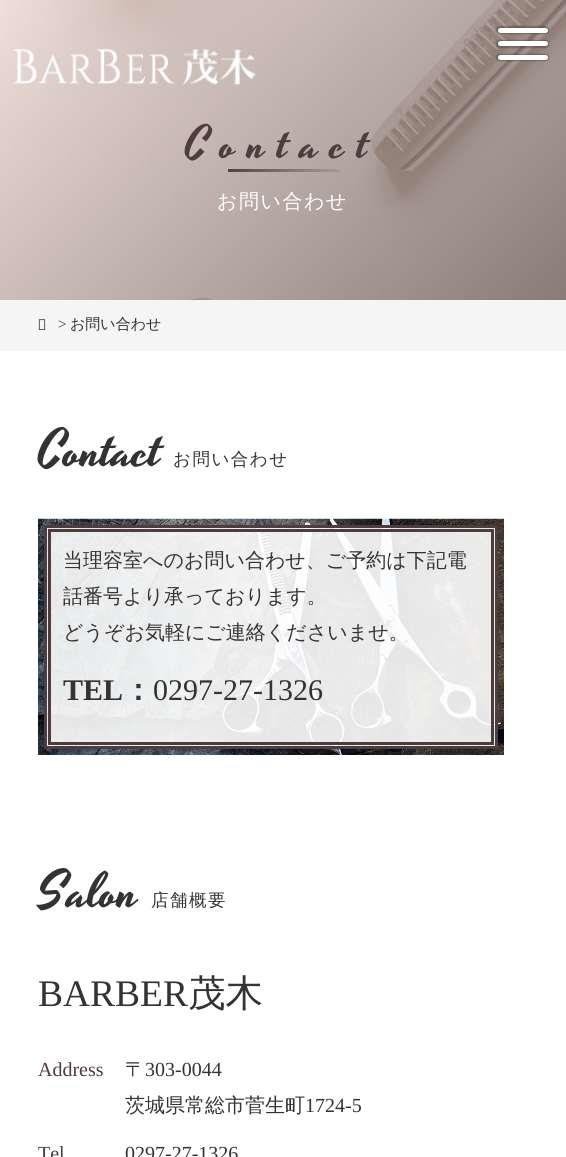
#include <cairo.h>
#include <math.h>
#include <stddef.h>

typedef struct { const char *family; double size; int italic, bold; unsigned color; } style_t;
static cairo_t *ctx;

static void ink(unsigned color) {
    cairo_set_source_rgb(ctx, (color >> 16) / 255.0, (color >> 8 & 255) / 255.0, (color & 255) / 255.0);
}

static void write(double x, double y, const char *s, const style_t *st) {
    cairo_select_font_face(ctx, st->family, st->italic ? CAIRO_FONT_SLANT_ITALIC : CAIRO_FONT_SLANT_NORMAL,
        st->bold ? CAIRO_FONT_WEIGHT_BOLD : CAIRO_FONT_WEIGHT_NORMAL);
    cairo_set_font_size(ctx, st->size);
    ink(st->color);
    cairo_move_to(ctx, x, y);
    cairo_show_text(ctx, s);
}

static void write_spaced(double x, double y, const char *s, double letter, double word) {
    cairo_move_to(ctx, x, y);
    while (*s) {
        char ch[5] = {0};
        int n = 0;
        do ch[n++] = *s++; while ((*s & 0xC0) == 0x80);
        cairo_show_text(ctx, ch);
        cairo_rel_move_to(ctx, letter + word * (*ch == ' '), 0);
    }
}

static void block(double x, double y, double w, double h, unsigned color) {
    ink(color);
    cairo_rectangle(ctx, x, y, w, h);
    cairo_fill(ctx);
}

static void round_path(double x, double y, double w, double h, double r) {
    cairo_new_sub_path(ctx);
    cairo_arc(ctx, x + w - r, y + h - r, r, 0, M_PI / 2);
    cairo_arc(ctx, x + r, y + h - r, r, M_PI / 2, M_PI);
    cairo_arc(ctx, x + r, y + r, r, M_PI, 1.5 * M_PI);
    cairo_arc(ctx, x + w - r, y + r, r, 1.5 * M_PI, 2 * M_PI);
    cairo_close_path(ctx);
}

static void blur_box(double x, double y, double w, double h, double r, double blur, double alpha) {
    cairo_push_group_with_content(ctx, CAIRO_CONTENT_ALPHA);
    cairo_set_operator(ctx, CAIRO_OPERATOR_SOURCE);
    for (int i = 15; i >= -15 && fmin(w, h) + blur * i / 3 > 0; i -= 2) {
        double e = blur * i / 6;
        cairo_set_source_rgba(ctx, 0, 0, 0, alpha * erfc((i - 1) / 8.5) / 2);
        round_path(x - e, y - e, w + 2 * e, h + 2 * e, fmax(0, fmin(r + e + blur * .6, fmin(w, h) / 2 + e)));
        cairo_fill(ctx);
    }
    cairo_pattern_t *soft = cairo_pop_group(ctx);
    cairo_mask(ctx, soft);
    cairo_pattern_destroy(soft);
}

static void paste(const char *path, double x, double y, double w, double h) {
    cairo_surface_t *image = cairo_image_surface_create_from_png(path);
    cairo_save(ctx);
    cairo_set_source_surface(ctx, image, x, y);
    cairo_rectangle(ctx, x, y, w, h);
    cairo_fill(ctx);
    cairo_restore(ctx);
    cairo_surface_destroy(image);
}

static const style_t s1 = {"Liberation Serif", 15, 0, 0, 0x333333};
static const style_t s2 = {"WenQuanYi Zen Hei Medium", 15, 0, 0, 0x333333};
static const style_t s3 = {"Yesteryear", 50, 0, 0, 0x333333};
static const style_t s4 = {"WenQuanYi Zen Hei Medium", 20, 0, 0, 0x333333};
static const style_t s5 = {"Liberation Serif", 30, 0, 1, 0x333333};
static const style_t s6 = {"WenQuanYi Zen Hei", 30, 0, 1, 0x333333};
static const style_t s7 = {"Liberation Serif", 30, 0, 0, 0x333333};
static const style_t s8 = {"Liberation Serif", 37.5, 0, 0, 0x333333};
static const style_t s9 = {"WenQuanYi Zen Hei Medium", 37.5, 0, 0, 0x333333};
static const style_t s10 = {"Liberation Serif", 20, 0, 0, 0x4e3d3d};
static const style_t s11 = {"Liberation Serif", 20, 0, 0, 0x333333};

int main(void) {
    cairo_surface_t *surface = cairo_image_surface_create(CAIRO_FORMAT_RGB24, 566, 1157);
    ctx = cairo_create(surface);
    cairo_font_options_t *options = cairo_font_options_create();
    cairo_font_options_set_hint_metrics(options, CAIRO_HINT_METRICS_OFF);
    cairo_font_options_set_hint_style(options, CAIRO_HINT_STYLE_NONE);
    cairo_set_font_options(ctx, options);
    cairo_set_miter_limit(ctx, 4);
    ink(0xffffff);
    cairo_paint(ctx);
    paste("pic2.png", 0, 0, 566, 300);
    paste("pic1.png", 13, 49, 243, 36);
    ink(0x1a1a1a);
    blur_box(496, 26, 53, 8, 4, 0.5, 0.3);
    ink(0xffffff);
    round_path(498, 28, 50, 5, 2.5);
    cairo_fill(ctx);
    ink(0x1a1a1a);
    blur_box(496, 40, 53, 8, 4, 0.5, 0.3);
    ink(0xffffff);
    round_path(498, 41, 50, 5, 2.5);
    cairo_fill(ctx);
    ink(0x1a1a1a);
    blur_box(496, 54, 53, 7, 3.5, 0.5, 0.3);
    ink(0xffffff);
    round_path(498, 55, 50, 5, 2.5);
    cairo_fill(ctx);
    cairo_select_font_face(ctx, "Yesteryear", CAIRO_FONT_SLANT_NORMAL, CAIRO_FONT_WEIGHT_NORMAL);
    cairo_set_font_size(ctx, 43.75);
    ink(0x4e3d3d);
    write_spaced(185, 157, "Contact", 12.5, 0);
    cairo_select_font_face(ctx, "WenQuanYi Zen Hei Medium", CAIRO_FONT_SLANT_NORMAL, CAIRO_FONT_WEIGHT_NORMAL);
    cairo_set_font_size(ctx, 20);
    ink(0xffffff);
    write_spaced(217, 208, "お問い合わせ", 1.5, 0);
    block(0, 300, 566, 51, 0xf6f5f5);
    paste("pic3.png", 38, 319, 8, 11);
    write(58, 329, ">", &s1);
    write(70, 329, "お問い合わせ", &s2);
    write(38, 465, "Contact", &s3);
    cairo_select_font_face(ctx, "WenQuanYi Zen Hei Medium", CAIRO_FONT_SLANT_NORMAL, CAIRO_FONT_WEIGHT_NORMAL);
    cairo_set_font_size(ctx, 17.5);
    write_spaced(173, 465, "お問い合わせ", 1.5, 0);
    paste("pic4.png", 38, 518, 466, 237);
    cairo_rectangle(ctx, 45.5, 526.5, 451, 221);
    ink(0x4e3d3d);
    cairo_set_line_width(ctx, 3);
    cairo_stroke(ctx);
    cairo_rectangle(ctx, 49.5, 530.5, 443, 213);
    cairo_stroke(ctx);
    write(63, 567, "当理容室へのお問い合わせ、ご予約は下記電", &s4);
    write(63, 603, "話番号より承っております。", &s4);
    write(63, 639, "どうぞお気軽にご連絡くださいませ。", &s4);
    write(63, 700, "TEL", &s5);
    write(123, 700, "：", &s6);
    write(153, 700, "0297-27-1326", &s7);
    write(38, 906, "Salon", &s3);
    cairo_select_font_face(ctx, "WenQuanYi Zen Hei Medium", CAIRO_FONT_SLANT_NORMAL, CAIRO_FONT_WEIGHT_NORMAL);
    cairo_set_font_size(ctx, 17.5);
    write_spaced(151, 906, "店舗概要", 1.5, 0);
    write(38, 1006, "BARBER", &s8);
    write(188, 1006, "茂木", &s9);
    write(38, 1076, "Address", &s10);
    write(125, 1076, "〒", &s4);
    write(145, 1076, "303-0044", &s11);
    write(125, 1112, "茨城県常総市菅生町", &s4);
    write(305, 1112, "1724-5", &s11);
    write(38, 1160, "Tel", &s10);
    write(125, 1160, "0297-27-1326", &s11);
    cairo_surface_write_to_png(surface, "screenshot.png");
    cairo_font_options_destroy(options);
    cairo_destroy(ctx);
    cairo_surface_destroy(surface);
    return 0;
}
